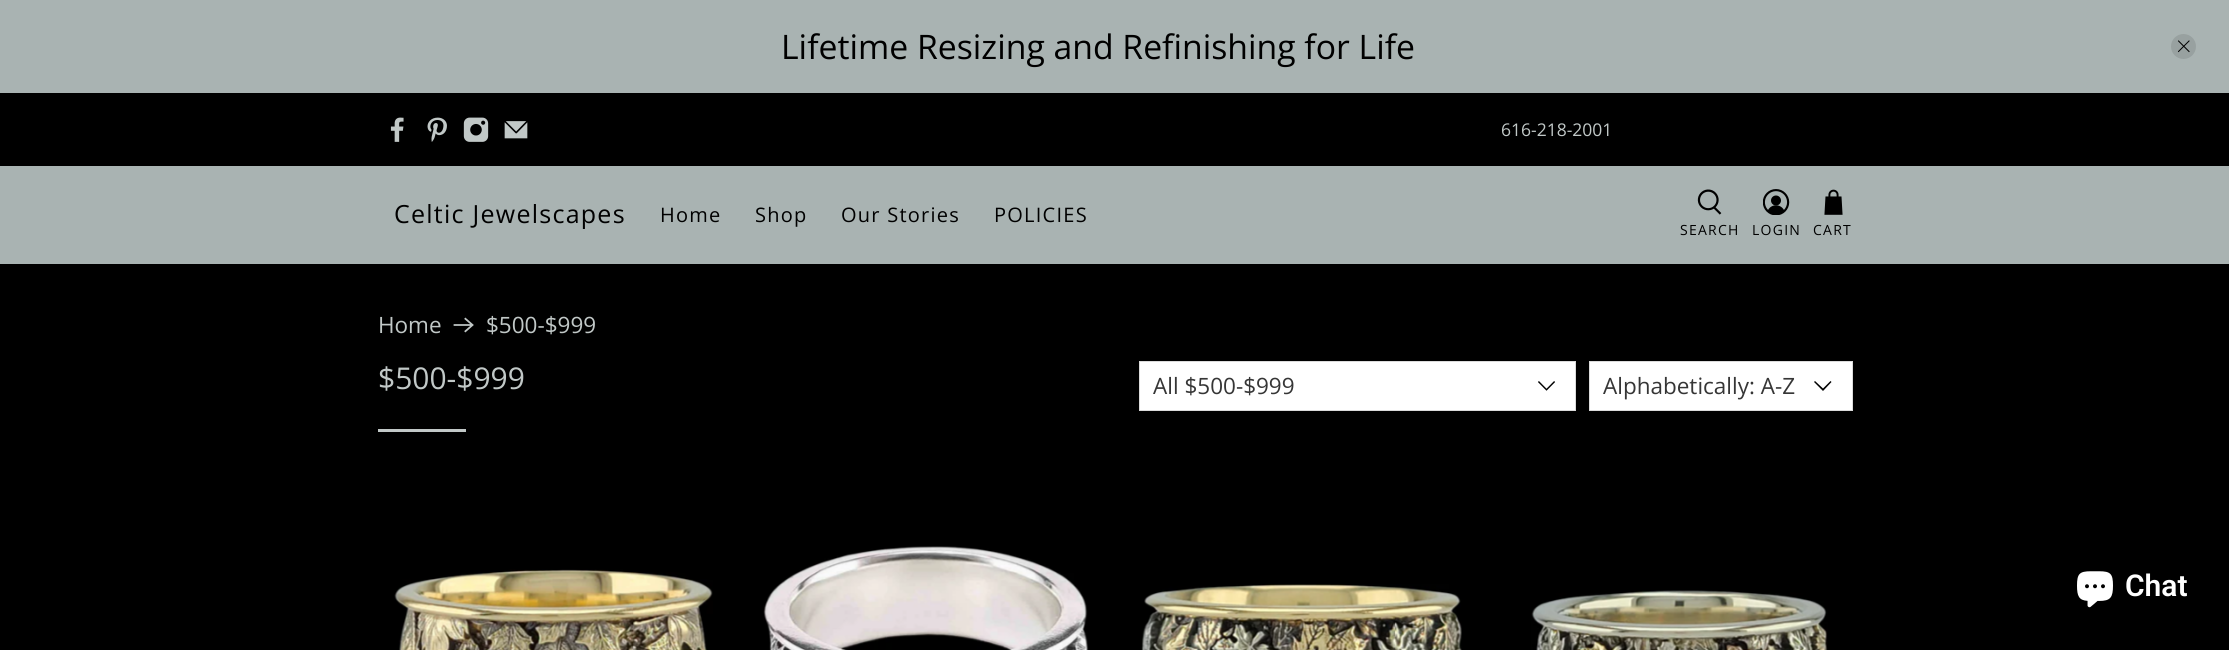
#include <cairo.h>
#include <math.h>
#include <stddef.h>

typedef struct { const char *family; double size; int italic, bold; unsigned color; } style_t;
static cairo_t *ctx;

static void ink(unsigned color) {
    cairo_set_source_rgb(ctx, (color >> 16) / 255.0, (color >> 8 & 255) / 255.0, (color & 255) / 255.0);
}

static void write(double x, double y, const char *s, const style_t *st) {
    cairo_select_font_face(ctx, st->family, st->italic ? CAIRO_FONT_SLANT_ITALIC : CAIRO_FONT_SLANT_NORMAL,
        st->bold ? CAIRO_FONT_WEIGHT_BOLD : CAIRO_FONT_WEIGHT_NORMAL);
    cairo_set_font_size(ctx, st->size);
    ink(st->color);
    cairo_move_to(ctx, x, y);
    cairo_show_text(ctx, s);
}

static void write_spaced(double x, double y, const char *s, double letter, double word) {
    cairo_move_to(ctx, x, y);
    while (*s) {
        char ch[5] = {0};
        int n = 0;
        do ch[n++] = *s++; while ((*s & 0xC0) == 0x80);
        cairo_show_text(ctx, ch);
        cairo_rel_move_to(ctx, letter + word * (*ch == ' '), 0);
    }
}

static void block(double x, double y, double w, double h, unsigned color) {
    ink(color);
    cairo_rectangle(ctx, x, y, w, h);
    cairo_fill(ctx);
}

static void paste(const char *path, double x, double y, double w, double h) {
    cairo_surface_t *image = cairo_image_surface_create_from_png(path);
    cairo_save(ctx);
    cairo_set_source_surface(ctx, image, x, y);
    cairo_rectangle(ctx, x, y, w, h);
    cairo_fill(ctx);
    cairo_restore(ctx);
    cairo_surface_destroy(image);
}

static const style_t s1 = {"Open Sans", 33.75, 0, 0, 0x000000};
static const style_t s2 = {"Open Sans", 17.5, 0, 0, 0xc1c8c7};
static const style_t s3 = {"Open Sans", 22.5, 0, 0, 0xc1c8c7};
static const style_t s4 = {"Open Sans", 30, 0, 0, 0xc1c8c7};
static const style_t s5 = {"Open Sans", 22.5, 0, 0, 0x363636};
static const style_t s6 = {"Roboto SemiBold", 30, 0, 0, 0xffffff};

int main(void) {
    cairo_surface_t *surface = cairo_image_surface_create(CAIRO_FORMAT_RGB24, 2229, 650);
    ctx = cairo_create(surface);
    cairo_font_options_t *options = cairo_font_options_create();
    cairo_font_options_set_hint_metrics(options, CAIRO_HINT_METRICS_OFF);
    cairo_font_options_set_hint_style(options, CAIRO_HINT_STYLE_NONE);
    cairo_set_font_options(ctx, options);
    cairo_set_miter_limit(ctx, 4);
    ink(0x000000);
    cairo_paint(ctx);
    block(0, 0, 2229, 93, 0xa9b3b2);
    write(781, 59, "Lifetime Resizing and Refinishing for Life", &s1);
    ink(0x98a1a0);
    cairo_new_path(ctx);
    cairo_arc(ctx, 2183.5, 46.5, 12.5, 0, 2 * M_PI);
    cairo_fill(ctx);
    paste("pic1.png", 2178, 40, 12, 13);
    paste("pic2.png", 390, 117, 14, 25);
    paste("pic3.png", 427, 117, 20, 25);
    paste("pic4.png", 463, 117, 26, 25);
    paste("pic5.png", 504, 121, 24, 18);
    write(1501, 136, "616-218-2001", &s2);
    block(0, 166, 2229, 98, 0xa9b3b2);
    cairo_set_font_size(ctx, 25);
    ink(0x000000);
    write_spaced(394, 223, "Celtic Jewelscapes", 1.25, 0);
    cairo_set_font_size(ctx, 20);
    write_spaced(660, 222, "Home", 1.25, 0);
    write_spaced(755, 222, "Shop", 1.25, 0);
    write_spaced(841, 222, "Our Stories", 1.25, 0);
    write_spaced(994, 222, "POLICIES", 1.25, 0);
    paste("pic6.png", 1697, 189, 25, 26);
    cairo_set_font_size(ctx, 14);
    write_spaced(1680, 235, "SEARCH", 1.25, 0);
    paste("pic7.png", 1763, 189, 27, 26);
    write_spaced(1752, 235, "LOGIN", 1.25, 0);
    paste("pic8.png", 1824, 189, 19, 26);
    write_spaced(1813, 235, "CART", 1.25, 0);
    write(378, 333, "Home", &s3);
    paste("pic9.png", 453, 317, 21, 16);
    write(486, 333, "$500-$999", &s3);
    write(378, 389, "$500-$999", &s4);
    block(378, 429, 88, 3, 0xc1c8c7);
    ink(0xffffff);
    cairo_rectangle(ctx, 1139.5, 361.5, 436, 49);
    cairo_fill_preserve(ctx);
    ink(0xdbdbdb);
    cairo_set_line_width(ctx, 1);
    cairo_stroke(ctx);
    write(1153, 394, "All $500-$999", &s5);
    paste("pic10.png", 1538, 381, 17, 10);
    ink(0xffffff);
    cairo_rectangle(ctx, 1589.5, 361.5, 263, 49);
    cairo_fill_preserve(ctx);
    ink(0xdbdbdb);
    cairo_stroke(ctx);
    write(1603, 394, "Alphabetically: A-Z", &s5);
    ink(0x000000);
    cairo_new_path(ctx);
    cairo_move_to(ctx, 1823, 391);
    cairo_line_to(ctx, 1814, 382);
    cairo_line_to(ctx, 1815, 381);
    cairo_line_to(ctx, 1823, 388.5);
    cairo_line_to(ctx, 1830.5, 381);
    cairo_line_to(ctx, 1831.5, 382);
    cairo_close_path(ctx);
    cairo_fill(ctx);
    paste("pic11.png", 394, 569, 319, 81);
    paste("pic12.png", 763, 546, 326, 104);
    paste("pic13.png", 1141, 584, 321, 66);
    paste("pic14.png", 1531, 590, 297, 60);
    paste("pic15.png", 2077, 571, 36, 37);
    write(2125, 596, "Chat", &s6);
    cairo_surface_write_to_png(surface, "screenshot.png");
    cairo_font_options_destroy(options);
    cairo_destroy(ctx);
    cairo_surface_destroy(surface);
    return 0;
}
